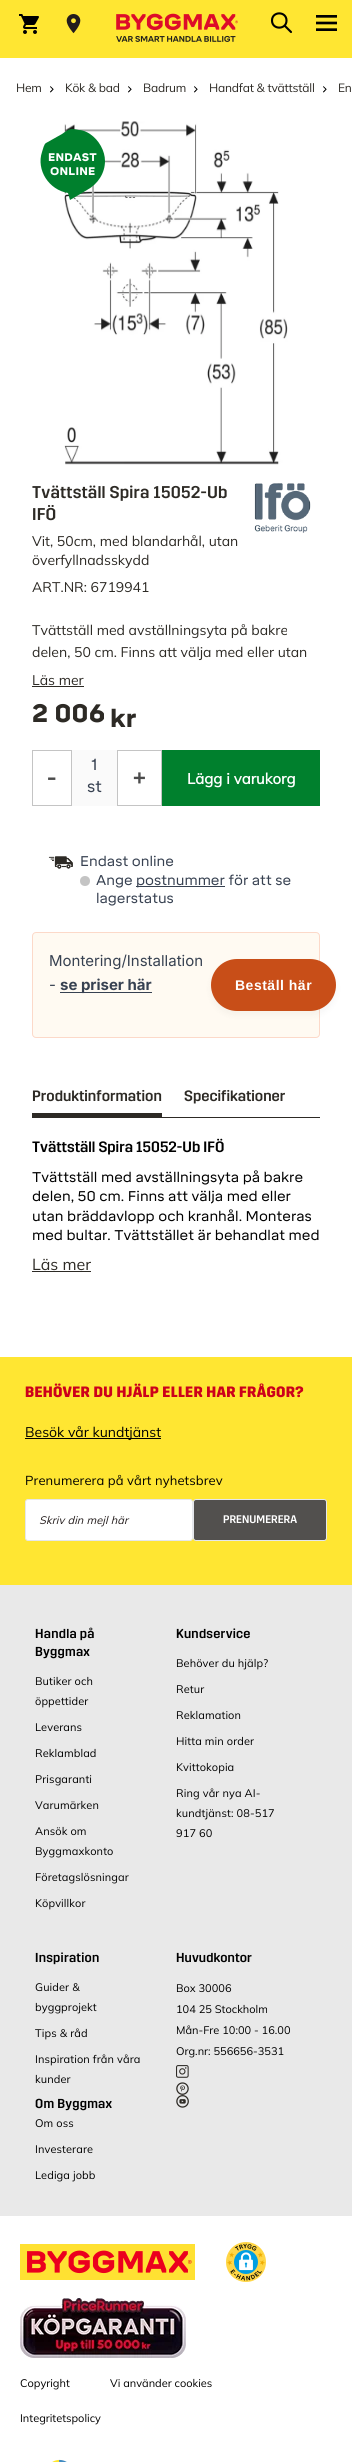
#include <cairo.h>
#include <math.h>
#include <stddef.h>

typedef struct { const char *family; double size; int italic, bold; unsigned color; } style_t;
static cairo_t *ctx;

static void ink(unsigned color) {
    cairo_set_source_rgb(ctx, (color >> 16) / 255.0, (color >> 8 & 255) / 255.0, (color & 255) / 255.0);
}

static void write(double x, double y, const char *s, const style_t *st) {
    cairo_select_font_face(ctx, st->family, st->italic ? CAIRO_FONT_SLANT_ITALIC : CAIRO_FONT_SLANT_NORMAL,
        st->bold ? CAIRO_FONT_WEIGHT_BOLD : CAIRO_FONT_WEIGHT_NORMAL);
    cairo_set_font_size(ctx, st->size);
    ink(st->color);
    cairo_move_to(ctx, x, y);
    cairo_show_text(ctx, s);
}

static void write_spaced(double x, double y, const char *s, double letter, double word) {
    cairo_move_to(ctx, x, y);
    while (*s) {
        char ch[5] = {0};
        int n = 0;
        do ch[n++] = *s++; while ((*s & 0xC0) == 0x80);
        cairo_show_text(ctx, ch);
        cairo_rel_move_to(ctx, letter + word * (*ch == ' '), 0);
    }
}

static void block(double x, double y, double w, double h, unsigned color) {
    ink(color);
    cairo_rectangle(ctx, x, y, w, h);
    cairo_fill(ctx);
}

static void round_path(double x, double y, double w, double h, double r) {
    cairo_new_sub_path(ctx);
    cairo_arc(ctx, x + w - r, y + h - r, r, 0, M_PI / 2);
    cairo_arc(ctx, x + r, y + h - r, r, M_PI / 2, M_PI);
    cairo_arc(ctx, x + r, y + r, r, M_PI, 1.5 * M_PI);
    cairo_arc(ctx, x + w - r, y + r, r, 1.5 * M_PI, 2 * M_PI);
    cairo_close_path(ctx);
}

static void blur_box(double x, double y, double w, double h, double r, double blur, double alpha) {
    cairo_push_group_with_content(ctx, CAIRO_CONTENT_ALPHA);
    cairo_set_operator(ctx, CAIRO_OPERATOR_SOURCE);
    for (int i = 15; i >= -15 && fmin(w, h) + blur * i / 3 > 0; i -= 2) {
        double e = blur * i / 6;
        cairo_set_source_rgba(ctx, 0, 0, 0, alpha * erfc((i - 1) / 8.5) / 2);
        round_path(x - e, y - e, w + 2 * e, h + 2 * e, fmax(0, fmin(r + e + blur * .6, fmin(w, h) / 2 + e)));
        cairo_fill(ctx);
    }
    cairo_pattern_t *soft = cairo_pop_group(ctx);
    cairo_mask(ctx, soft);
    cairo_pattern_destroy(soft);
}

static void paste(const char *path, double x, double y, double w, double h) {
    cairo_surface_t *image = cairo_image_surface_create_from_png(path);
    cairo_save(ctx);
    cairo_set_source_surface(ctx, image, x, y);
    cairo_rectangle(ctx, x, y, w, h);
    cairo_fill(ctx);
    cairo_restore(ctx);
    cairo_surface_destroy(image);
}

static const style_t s1 = {"Mulish", 14, 0, 0, 0x2d2a25};
static const style_t s2 = {"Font", 20, 0, 1, 0x4c4c4c};
static const style_t s3 = {"Font", 16, 0, 0, 0x374151};
static const style_t s4 = {"Mulish", 15, 0, 1, 0xffffff};
static const style_t s5 = {"Font", 14, 0, 0, 0x374151};
static const style_t s6 = {"Inter", 15, 0, 0, 0x374151};
static const style_t s7 = {"Inter", 15, 0, 1, 0x374151};
static const style_t s8 = {"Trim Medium", 15, 0, 0, 0x2d2a25};
static const style_t s9 = {"Trim Medium", 15, 0, 0, 0x000000};
static const style_t s10 = {"Font", 14, 0, 0, 0x000000};
static const style_t s11 = {"Mulish", 16, 0, 0, 0x2d2a25};
static const style_t s12 = {"Mulish", 14, 0, 0, 0x000000};
static const style_t s13 = {"Trim Medium", 11, 0, 0, 0xffffff};
static const style_t s14 = {"Mulish", 11, 0, 0, 0x000000};

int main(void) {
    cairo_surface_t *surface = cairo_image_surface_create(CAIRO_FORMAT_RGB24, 352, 2462);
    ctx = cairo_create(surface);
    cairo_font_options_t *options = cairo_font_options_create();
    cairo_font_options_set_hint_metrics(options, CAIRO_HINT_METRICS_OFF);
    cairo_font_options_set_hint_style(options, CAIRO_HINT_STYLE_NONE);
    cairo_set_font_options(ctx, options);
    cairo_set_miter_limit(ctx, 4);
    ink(0xffffff);
    cairo_paint(ctx);
    block(0, 0, 352, 58, 0xffe632);
    paste("pic1.png", 19, 14, 20, 20);
    paste("pic2.png", 66, 14, 15, 20);
    paste("pic3.png", 116, 13, 122, 29);
    cairo_new_path(ctx);
    cairo_move_to(ctx, 291, 32);
    cairo_line_to(ctx, 284.5, 25.5);
    cairo_move_to(ctx, 286.5, 20.5);
    cairo_curve_to(ctx, 286.5, 30, 272, 30, 272, 20.5);
    cairo_curve_to(ctx, 272, 11, 286.5, 11, 286.5, 20.5);
    cairo_close_path(ctx);
    ink(0x000000);
    cairo_set_line_width(ctx, 2.1);
    cairo_set_line_cap(ctx, CAIRO_LINE_CAP_ROUND);
    cairo_set_line_join(ctx, CAIRO_LINE_JOIN_ROUND);
    cairo_stroke(ctx);
    paste("pic4.png", 316, 15, 21, 16);
    cairo_select_font_face(ctx, "Mulish", CAIRO_FONT_SLANT_NORMAL, CAIRO_FONT_WEIGHT_NORMAL);
    cairo_set_font_size(ctx, 12);
    ink(0x2d2a25);
    write_spaced(16, 92, "Hem", -0.2, 0);
    paste("pic5.png", 50, 86, 4, 7);
    write_spaced(65, 92, "Kök & bad", -0.2, 0);
    paste("pic5.png", 128, 86, 4, 7);
    write_spaced(143, 92, "Badrum", -0.2, 0);
    paste("pic5.png", 194, 86, 4, 7);
    write_spaced(209, 92, "Handfat & tvättställ", -0.2, 0);
    paste("pic5.png", 323, 86, 4, 7);
    write_spaced(338, 92, "En", -0.2, 0);
    paste("pic6.png", 64, 121, 224, 344);
    ink(0x00802d);
    cairo_new_path(ctx);
    cairo_move_to(ctx, 105, 161);
    cairo_curve_to(ctx, 105, 151, 99, 140, 90, 134);
    cairo_curve_to(ctx, 87, 132, 83, 130, 79, 130);
    cairo_curve_to(ctx, 70, 128, 69, 129, 62, 134);
    cairo_line_to(ctx, 46, 143);
    cairo_curve_to(ctx, 44, 144, 43, 149, 42, 152);
    cairo_curve_to(ctx, 36, 170, 49, 190, 68, 193);
    cairo_line_to(ctx, 70, 200);
    cairo_line_to(ctx, 87, 190);
    cairo_curve_to(ctx, 98, 184, 105, 173, 105, 161);
    cairo_close_path(ctx);
    cairo_fill(ctx);
    cairo_select_font_face(ctx, "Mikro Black", CAIRO_FONT_SLANT_NORMAL, CAIRO_FONT_WEIGHT_NORMAL);
    cairo_set_font_size(ctx, 11);
    ink(0xffffff);
    write_spaced(48, 161, "ENDAST", 0.2, 0);
    write_spaced(50, 175, "ONLINE", 0.2, 0);
    cairo_select_font_face(ctx, "Trim Medium", CAIRO_FONT_SLANT_NORMAL, CAIRO_FONT_WEIGHT_NORMAL);
    cairo_set_font_size(ctx, 17);
    ink(0x2d2a25);
    write_spaced(32, 498, "Tvättställ Spira 15052-Ub", 0.2, 0);
    write_spaced(32, 520, "IFÖ", 0.2, 0);
    write(32, 546, "Vit, 50cm, med blandarhål, utan", &s1);
    write(32, 565, "överfyllnadsskydd", &s1);
    write(32, 592, "ART.NR: 6719941", &s1);
    paste("pic7.png", 254, 483, 57, 50);
    write(32, 635, "Tvättställ med avställningsyta på bakre", &s1);
    write(32, 657, "delen, 50 cm. Finns att välja med eller utan", &s1);
    write(32, 685, "Läs mer", &s1);
    block(32, 686, 52, 1, 0x2d2a25);
    cairo_select_font_face(ctx, "Mikro Black", CAIRO_FONT_SLANT_NORMAL, CAIRO_FONT_WEIGHT_NORMAL);
    cairo_set_font_size(ctx, 25);
    write_spaced(32, 722, "2 006", 0.2, 0);
    write_spaced(110, 727, "kr", 0.2, 0);
    cairo_rectangle(ctx, 32.5, 750.5, 39, 55);
    ink(0xc4c4c4);
    cairo_set_line_width(ctx, 1);
    cairo_set_line_cap(ctx, CAIRO_LINE_CAP_BUTT);
    cairo_set_line_join(ctx, CAIRO_LINE_JOIN_MITER);
    cairo_stroke(ctx);
    write(47, 785, "-", &s2);
    block(72, 750, 45, 56, 0xfafafa);
    write(91, 770, "1", &s3);
    write(87, 792, "st", &s3);
    cairo_rectangle(ctx, 117.5, 750.5, 44, 55);
    ink(0xc4c4c4);
    cairo_stroke(ctx);
    write(133, 785, "+", &s2);
    block(162, 750, 158, 56, 0x00802d);
    write(187, 784, "Lägg i varukorg", &s4);
    paste("pic8.png", 48, 856, 25, 13);
    write(80, 866, "Endast online", &s5);
    ink(0xc4c4c4);
    cairo_new_path(ctx);
    cairo_arc(ctx, 85, 881, 5, 0, 2 * M_PI);
    cairo_fill(ctx);
    write(96, 885, "Ange", &s5);
    block(136, 886, 89, 1, 0x374151);
    write(136, 885, "postnummer för att se", &s5);
    write(96, 903, "lagerstatus", &s5);
    ink(0xfffaf2);
    round_path(32.5, 932.5, 287, 105, 3.5);
    cairo_fill_preserve(ctx);
    ink(0xfcd9c9);
    cairo_stroke(ctx);
    write(49, 966, "Montering/Installation", &s6);
    write(49, 990, "-", &s6);
    block(60, 992, 92, 1, 0x374151);
    write(60, 990, "se priser här", &s7);
    ink(0x000000);
    blur_box(211, 963, 125, 52, 26, 4, 0.04);
    ink(0xc84e18);
    round_path(211, 959, 125, 52, 26);
    cairo_fill(ctx);
    cairo_select_font_face(ctx, "Liberation Sans", CAIRO_FONT_SLANT_NORMAL, CAIRO_FONT_WEIGHT_BOLD);
    cairo_set_font_size(ctx, 14);
    ink(0xffffff);
    write_spaced(235, 990, "Beställ här", 0.5, 0);
    block(32, 1117, 288, 1, 0x2d2a25);
    block(32, 1113, 130, 4, 0x2d2a25);
    write(32, 1101, "Produktinformation", &s8);
    write(184, 1101, "Specifikationer", &s8);
    write(32, 1152, "Tvättställ Spira 15052-Ub IFÖ", &s9);
    write(32, 1182, "Tvättställ med avställningsyta på bakre", &s10);
    write(32, 1201, "delen, 50 cm. Finns att välja med eller", &s10);
    write(32, 1221, "utan bräddavlopp och kranhål. Monteras", &s10);
    write(32, 1240, "med bultar. Tvättstället är behandlat med", &s10);
    write(32, 1270, "Läs mer", &s11);
    block(32, 1271, 59, 1, 0x2d2a25);
    block(0, 1357, 352, 228, 0xffe632);
    cairo_select_font_face(ctx, "Trim", CAIRO_FONT_SLANT_NORMAL, CAIRO_FONT_WEIGHT_BOLD);
    cairo_set_font_size(ctx, 15);
    ink(0xcc001b);
    write_spaced(25, 1397, "BEHÖVER DU HJÄLP ELLER HAR FRÅGOR?", 0.3, 0);
    block(25, 1438, 136, 1, 0x000000);
    write(25, 1437, "Besök vår kundtjänst", &s12);
    cairo_set_font_size(ctx, 13);
    write_spaced(25, 1485, "Prenumerera på vårt nyhetsbrev", 0.1, 0);
    ink(0xffffff);
    round_path(25.5, 1499.5, 167, 41, 2.5);
    cairo_fill_preserve(ctx);
    ink(0xe5e7eb);
    cairo_stroke(ctx);
    cairo_select_font_face(ctx, "Mulish", CAIRO_FONT_SLANT_ITALIC, CAIRO_FONT_WEIGHT_NORMAL);
    cairo_set_font_size(ctx, 11);
    ink(0x231c1c);
    write_spaced(39, 1524, "Skriv din mejl här", 0.1, 0);
    ink(0x52504e);
    round_path(193.5, 1499.5, 133, 41, 2.5);
    cairo_fill_preserve(ctx);
    ink(0xe5e7eb);
    cairo_stroke(ctx);
    write(223, 1523, "PRENUMERERA", &s13);
    block(0, 1585, 352, 631, 0xe9e9e9);
    cairo_set_font_size(ctx, 13);
    ink(0x000000);
    write_spaced(35, 1638, "Handla på", 0.25, 0);
    write_spaced(35, 1656, "Byggmax", 0.25, 0);
    cairo_select_font_face(ctx, "Mulish", CAIRO_FONT_SLANT_NORMAL, CAIRO_FONT_WEIGHT_NORMAL);
    cairo_set_font_size(ctx, 11);
    write_spaced(35, 1685, "Butiker och", 0.1, 0);
    write_spaced(35, 1705, "öppettider", 0.1, 0);
    write_spaced(35, 1731, "Leverans", 0.1, 0);
    write_spaced(35, 1757, "Reklamblad", 0.1, 0);
    write_spaced(35, 1783, "Prisgaranti", 0.1, 0);
    write_spaced(35, 1809, "Varumärken", 0.1, 0);
    write_spaced(35, 1835, "Ansök om", 0.1, 0);
    write_spaced(35, 1855, "Byggmaxkonto", 0.1, 0);
    write_spaced(35, 1881, "Företagslösningar", 0.1, 0);
    write_spaced(35, 1907, "Köpvillkor", 0.1, 0);
    cairo_select_font_face(ctx, "Trim Medium", CAIRO_FONT_SLANT_NORMAL, CAIRO_FONT_WEIGHT_NORMAL);
    cairo_set_font_size(ctx, 13);
    write_spaced(176, 1638, "Kundservice", 0.25, 0);
    cairo_select_font_face(ctx, "Mulish", CAIRO_FONT_SLANT_NORMAL, CAIRO_FONT_WEIGHT_NORMAL);
    cairo_set_font_size(ctx, 11);
    write_spaced(176, 1667, "Behöver du hjälp?", 0.1, 0);
    write_spaced(176, 1693, "Retur", 0.1, 0);
    write_spaced(176, 1719, "Reklamation", 0.1, 0);
    write_spaced(176, 1745, "Hitta min order", 0.1, 0);
    write_spaced(176, 1771, "Kvittokopia", 0.1, 0);
    write_spaced(176, 1797, "Ring vår nya AI-", 0.1, 0);
    write_spaced(176, 1817, "kundtjänst: 08-517", 0.1, 0);
    write_spaced(176, 1837, "917 60", 0.1, 0);
    cairo_select_font_face(ctx, "Trim Medium", CAIRO_FONT_SLANT_NORMAL, CAIRO_FONT_WEIGHT_NORMAL);
    cairo_set_font_size(ctx, 13);
    write_spaced(35, 1962, "Inspiration", 0.25, 0);
    cairo_select_font_face(ctx, "Mulish", CAIRO_FONT_SLANT_NORMAL, CAIRO_FONT_WEIGHT_NORMAL);
    cairo_set_font_size(ctx, 11);
    write_spaced(35, 1991, "Guider &", 0.1, 0);
    write_spaced(35, 2011, "byggprojekt", 0.1, 0);
    write_spaced(35, 2037, "Tips & råd", 0.1, 0);
    write_spaced(35, 2063, "Inspiration från våra", 0.1, 0);
    write_spaced(35, 2083, "kunder", 0.1, 0);
    cairo_select_font_face(ctx, "Trim Medium", CAIRO_FONT_SLANT_NORMAL, CAIRO_FONT_WEIGHT_NORMAL);
    cairo_set_font_size(ctx, 13);
    write_spaced(35, 2108, "Om Byggmax", 0.25, 0);
    cairo_select_font_face(ctx, "Mulish", CAIRO_FONT_SLANT_NORMAL, CAIRO_FONT_WEIGHT_NORMAL);
    cairo_set_font_size(ctx, 11);
    write_spaced(35, 2127, "Om oss", 0.1, 0);
    write_spaced(35, 2153, "Investerare", 0.1, 0);
    write_spaced(35, 2179, "Lediga jobb", 0.1, 0);
    cairo_select_font_face(ctx, "Trim Medium", CAIRO_FONT_SLANT_NORMAL, CAIRO_FONT_WEIGHT_NORMAL);
    cairo_set_font_size(ctx, 13);
    write_spaced(176, 1962, "Huvudkontor", 0.1, 0);
    write(176, 1992, "Box 30006", &s14);
    write(176, 2013, "104 25 Stockholm", &s14);
    write(176, 2034, "Mån-Fre 10:00 - 16.00", &s14);
    write(176, 2055, "Org.nr: 556656-3531", &s14);
    paste("pic9.png", 176, 2065, 13, 13);
    paste("pic10.png", 176, 2082, 13, 13);
    paste("pic11.png", 176, 2095, 13, 13);
    paste("pic12.png", 20, 2244, 175, 36);
    paste("pic13.png", 226, 2242, 40, 40);
    paste("pic14.png", 20, 2298, 166, 60);
    write(20, 2387, "Copyright", &s14);
    write(110, 2387, "Vi använder cookies", &s14);
    write(20, 2422, "Integritetspolicy", &s14);
    paste("pic15.png", 52, 2459, 15, 3);
    cairo_surface_write_to_png(surface, "screenshot.png");
    cairo_font_options_destroy(options);
    cairo_destroy(ctx);
    cairo_surface_destroy(surface);
    return 0;
}
